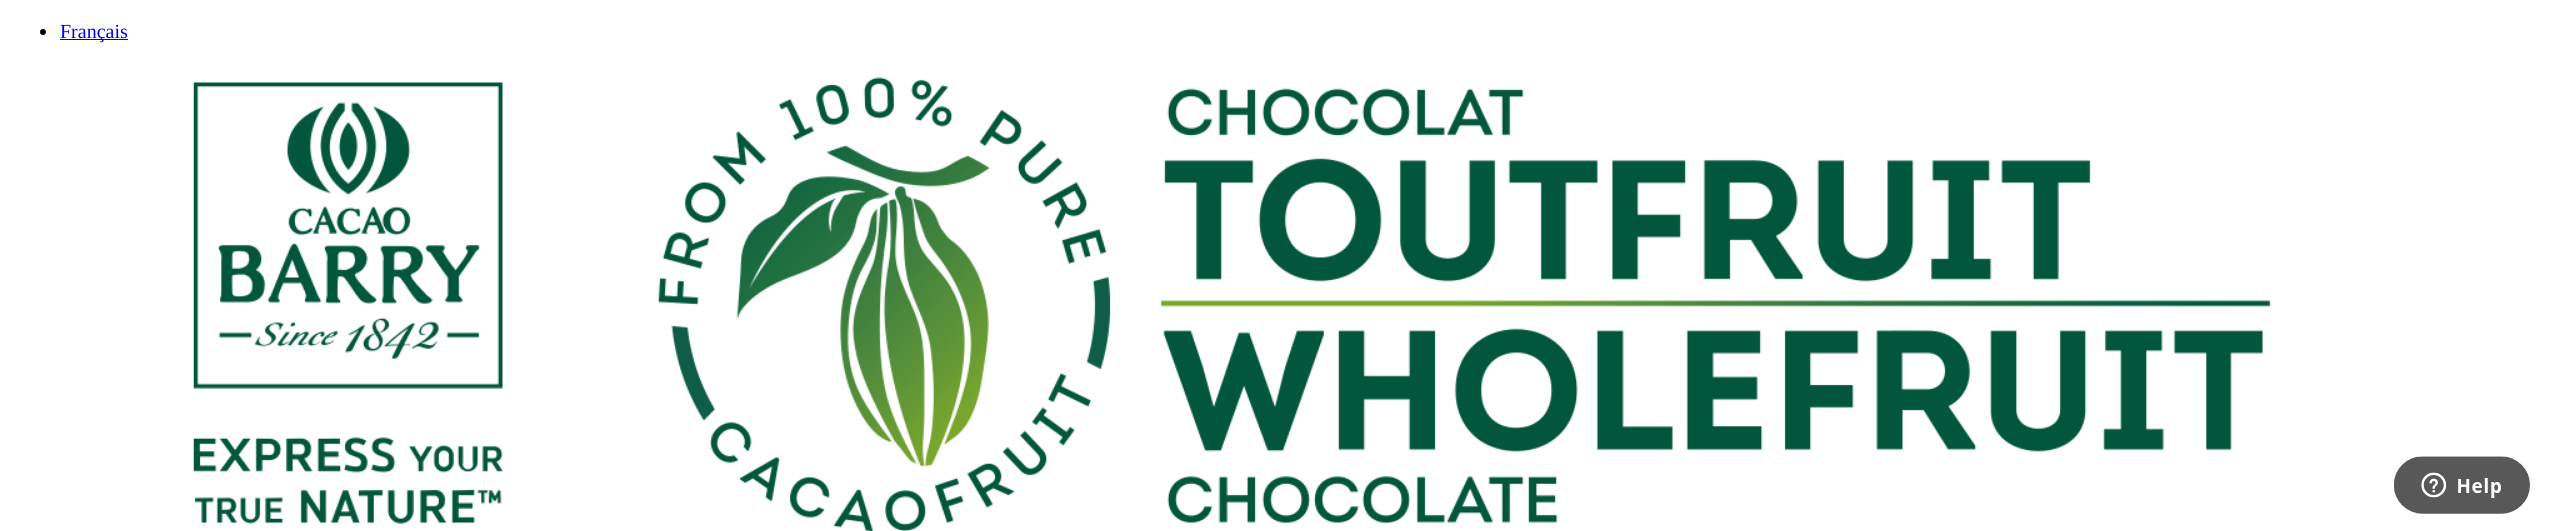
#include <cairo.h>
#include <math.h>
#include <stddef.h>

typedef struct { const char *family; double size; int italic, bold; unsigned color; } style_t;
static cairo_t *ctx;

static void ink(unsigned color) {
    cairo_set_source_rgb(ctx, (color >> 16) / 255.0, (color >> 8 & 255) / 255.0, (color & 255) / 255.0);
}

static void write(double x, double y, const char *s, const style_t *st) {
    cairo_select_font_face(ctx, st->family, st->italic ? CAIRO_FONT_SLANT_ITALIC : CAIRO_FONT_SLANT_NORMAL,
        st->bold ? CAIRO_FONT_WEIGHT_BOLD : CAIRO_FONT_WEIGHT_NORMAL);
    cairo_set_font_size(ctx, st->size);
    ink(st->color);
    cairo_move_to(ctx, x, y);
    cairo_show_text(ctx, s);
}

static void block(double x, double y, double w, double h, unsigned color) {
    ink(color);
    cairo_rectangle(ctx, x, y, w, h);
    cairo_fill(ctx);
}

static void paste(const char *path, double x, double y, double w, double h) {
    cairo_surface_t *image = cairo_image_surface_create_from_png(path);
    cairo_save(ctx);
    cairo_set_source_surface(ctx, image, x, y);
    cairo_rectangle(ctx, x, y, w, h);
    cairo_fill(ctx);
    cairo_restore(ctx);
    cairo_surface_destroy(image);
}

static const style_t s1 = {"Liberation Serif", 20, 0, 0, 0x0000ee};

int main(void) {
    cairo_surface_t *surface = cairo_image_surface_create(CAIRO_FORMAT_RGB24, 2554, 531);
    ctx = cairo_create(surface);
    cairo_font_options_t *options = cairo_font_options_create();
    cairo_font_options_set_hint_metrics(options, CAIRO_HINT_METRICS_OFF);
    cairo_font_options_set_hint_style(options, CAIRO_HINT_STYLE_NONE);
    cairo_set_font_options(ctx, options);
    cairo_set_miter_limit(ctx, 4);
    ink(0xffffff);
    cairo_paint(ctx);
    ink(0x000000);
    cairo_arc(ctx, 43, 32, 3, 0, 2 * M_PI);
    cairo_fill(ctx);
    block(60, 39, 68, 1, 0x0000ee);
    write(60, 38, "Français", &s1);
    paste("pic1.png", 193, 77, 2078, 454);
    paste("pic2.png", 2394, 456, 136, 58);
    cairo_surface_write_to_png(surface, "screenshot.png");
    cairo_font_options_destroy(options);
    cairo_destroy(ctx);
    cairo_surface_destroy(surface);
    return 0;
}
